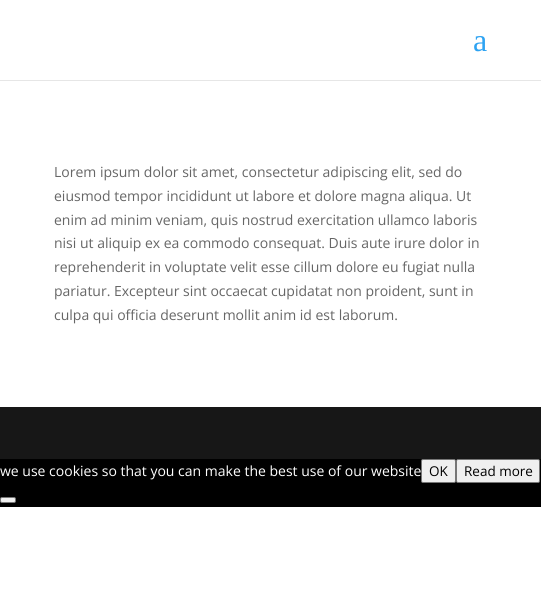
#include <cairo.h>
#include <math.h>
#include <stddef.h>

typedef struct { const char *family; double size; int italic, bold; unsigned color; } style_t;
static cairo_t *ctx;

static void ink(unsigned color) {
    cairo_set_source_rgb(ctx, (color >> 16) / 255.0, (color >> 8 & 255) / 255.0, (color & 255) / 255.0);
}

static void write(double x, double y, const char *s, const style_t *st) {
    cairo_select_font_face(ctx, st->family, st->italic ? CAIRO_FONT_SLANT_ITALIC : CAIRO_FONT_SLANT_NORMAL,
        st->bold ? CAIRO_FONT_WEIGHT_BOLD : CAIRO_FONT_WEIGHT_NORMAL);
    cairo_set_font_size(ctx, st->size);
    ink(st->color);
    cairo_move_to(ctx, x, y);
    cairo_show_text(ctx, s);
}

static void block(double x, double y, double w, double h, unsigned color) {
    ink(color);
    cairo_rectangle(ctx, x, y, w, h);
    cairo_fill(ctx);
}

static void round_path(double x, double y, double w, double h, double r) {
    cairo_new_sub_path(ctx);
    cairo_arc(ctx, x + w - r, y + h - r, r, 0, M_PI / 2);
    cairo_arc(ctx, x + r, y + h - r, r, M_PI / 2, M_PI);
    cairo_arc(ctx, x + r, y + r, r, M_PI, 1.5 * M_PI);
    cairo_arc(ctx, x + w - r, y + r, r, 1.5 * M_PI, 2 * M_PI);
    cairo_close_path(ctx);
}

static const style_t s1 = {"Liberation Serif", 32, 0, 0, 0x2ea3f2};
static const style_t s2 = {"Open Sans", 14, 0, 0, 0x666666};
static const style_t s3 = {"Open Sans", 14, 0, 0, 0xffffff};
static const style_t s4 = {"Open Sans", 13.5, 0, 0, 0x000000};

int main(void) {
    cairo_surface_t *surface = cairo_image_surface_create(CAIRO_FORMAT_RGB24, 541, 608);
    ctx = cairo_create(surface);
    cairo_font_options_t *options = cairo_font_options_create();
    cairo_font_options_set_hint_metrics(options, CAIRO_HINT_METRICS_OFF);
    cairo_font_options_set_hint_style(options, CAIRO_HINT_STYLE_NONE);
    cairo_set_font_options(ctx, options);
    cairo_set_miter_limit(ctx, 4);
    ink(0xffffff);
    cairo_paint(ctx);
    block(0, 80, 541, 1, 0xe6e6e6);
    write(473, 51, "a", &s1);
    write(54, 177, "Lorem ipsum dolor sit amet, consectetur adipiscing elit, sed do", &s2);
    write(54, 201, "eiusmod tempor incididunt ut labore et dolore magna aliqua. Ut", &s2);
    write(54, 225, "enim ad minim veniam, quis nostrud exercitation ullamco laboris", &s2);
    write(54, 248, "nisi ut aliquip ex ea commodo consequat. Duis aute irure dolor in", &s2);
    write(54, 272, "reprehenderit in voluptate velit esse cillum dolore eu fugiat nulla", &s2);
    write(54, 296, "pariatur. Excepteur sint occaecat cupidatat non proident, sunt in", &s2);
    write(54, 320, "culpa qui officia deserunt mollit anim id est laborum.", &s2);
    block(0, 407, 541, 52, 0x171717);
    block(0, 459, 541, 48, 0x000000);
    write(0, 476, "we use cookies so that you can make the best use of our website", &s3);
    ink(0xefefef);
    round_path(421.5, 459.5, 34, 23, 1.5);
    cairo_fill_preserve(ctx);
    ink(0x767676);
    cairo_set_line_width(ctx, 1);
    cairo_stroke(ctx);
    write(429, 476, "OK", &s4);
    ink(0xefefef);
    round_path(456.5, 459.5, 83, 23, 1.5);
    cairo_fill_preserve(ctx);
    ink(0x767676);
    cairo_stroke(ctx);
    write(464, 476, "Read more", &s4);
    ink(0xefefef);
    round_path(0.5, 497.5, 15, 5, 1.5);
    cairo_fill_preserve(ctx);
    ink(0x767676);
    cairo_stroke(ctx);
    cairo_surface_write_to_png(surface, "screenshot.png");
    cairo_font_options_destroy(options);
    cairo_destroy(ctx);
    cairo_surface_destroy(surface);
    return 0;
}
